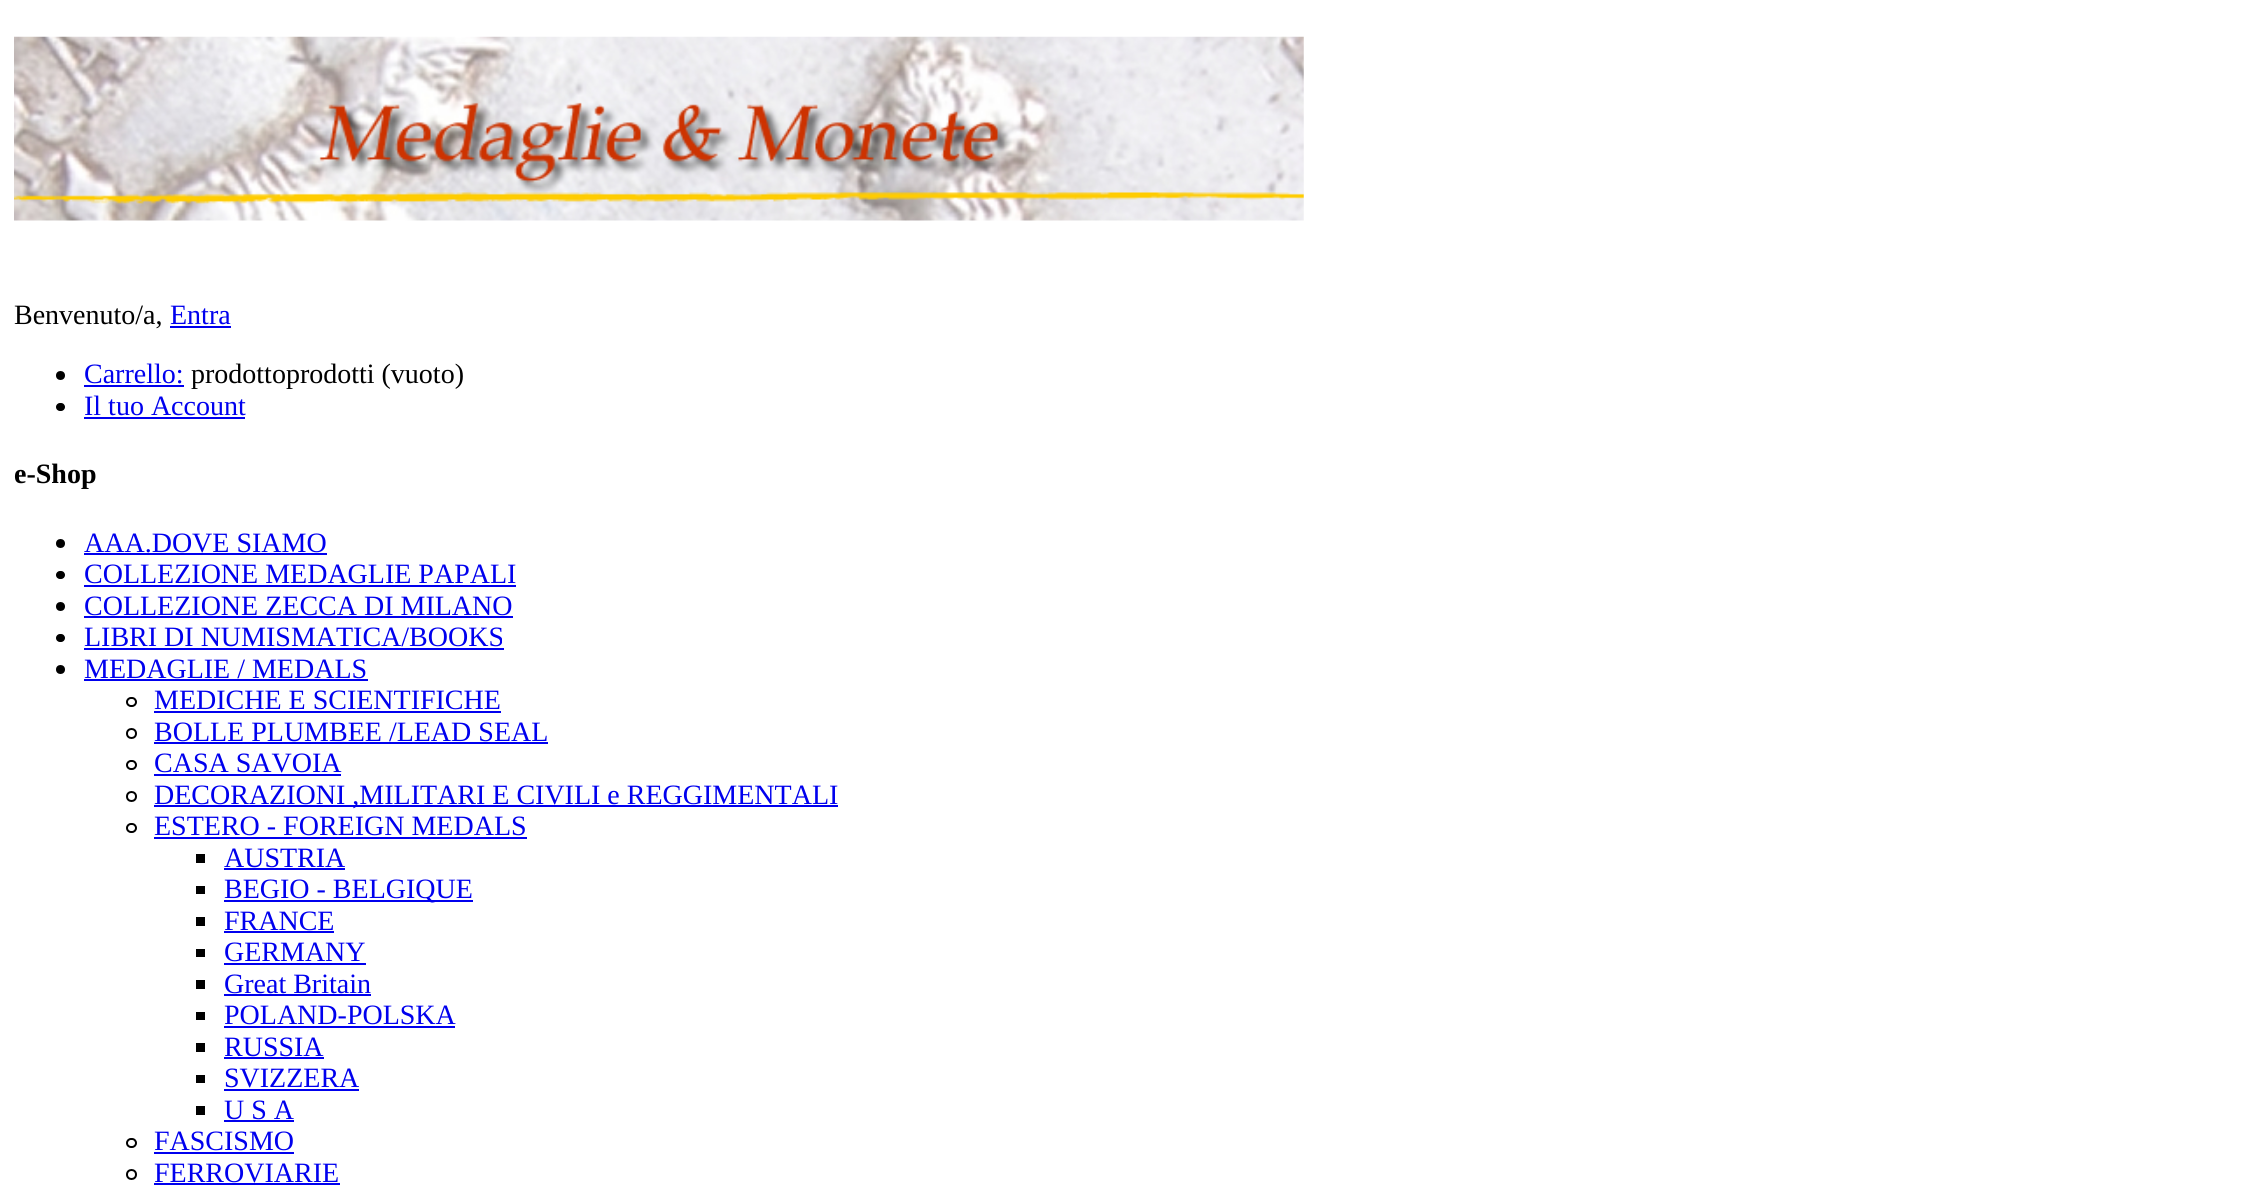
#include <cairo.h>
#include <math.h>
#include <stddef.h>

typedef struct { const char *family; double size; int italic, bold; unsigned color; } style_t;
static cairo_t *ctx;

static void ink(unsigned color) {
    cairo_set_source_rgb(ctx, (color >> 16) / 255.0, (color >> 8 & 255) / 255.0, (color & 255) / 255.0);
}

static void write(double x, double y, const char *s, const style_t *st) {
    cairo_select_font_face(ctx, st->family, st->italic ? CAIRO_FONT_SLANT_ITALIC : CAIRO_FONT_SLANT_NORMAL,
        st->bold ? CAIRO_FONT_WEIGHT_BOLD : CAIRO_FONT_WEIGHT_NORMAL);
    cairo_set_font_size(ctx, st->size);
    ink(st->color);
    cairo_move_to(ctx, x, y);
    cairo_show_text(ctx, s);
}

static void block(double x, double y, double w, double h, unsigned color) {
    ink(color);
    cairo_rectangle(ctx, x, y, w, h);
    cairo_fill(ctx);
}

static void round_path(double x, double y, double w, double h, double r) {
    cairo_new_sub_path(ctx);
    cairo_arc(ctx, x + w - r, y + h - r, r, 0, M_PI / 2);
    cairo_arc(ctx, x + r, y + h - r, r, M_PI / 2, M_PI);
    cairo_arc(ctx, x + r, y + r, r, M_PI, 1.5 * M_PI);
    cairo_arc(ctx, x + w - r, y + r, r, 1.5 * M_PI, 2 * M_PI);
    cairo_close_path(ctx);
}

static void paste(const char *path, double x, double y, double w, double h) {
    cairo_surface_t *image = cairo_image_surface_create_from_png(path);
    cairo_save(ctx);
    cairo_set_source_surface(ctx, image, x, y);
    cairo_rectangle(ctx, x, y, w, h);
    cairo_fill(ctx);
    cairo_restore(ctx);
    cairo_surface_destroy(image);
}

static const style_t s1 = {"Liberation Serif", 28, 0, 0, 0x000000};
static const style_t s2 = {"Liberation Serif", 28, 0, 0, 0x0000ee};
static const style_t s3 = {"Liberation Serif", 28, 0, 1, 0x000000};

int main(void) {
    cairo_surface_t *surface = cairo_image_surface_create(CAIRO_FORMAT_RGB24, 2261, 1189);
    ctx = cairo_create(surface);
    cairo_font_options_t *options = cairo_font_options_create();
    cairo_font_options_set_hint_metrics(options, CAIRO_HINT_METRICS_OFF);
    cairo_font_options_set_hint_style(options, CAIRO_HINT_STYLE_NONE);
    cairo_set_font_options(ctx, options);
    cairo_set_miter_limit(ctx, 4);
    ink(0xffffff);
    cairo_paint(ctx);
    paste("pic1.png", 14, 36, 1290, 185);
    write(14, 324, "Benvenuto/a,", &s1);
    write(170, 324, "Entra", &s2);
    block(170, 326, 61, 2, 0x0000ee);
    ink(0x000000);
    cairo_new_path(ctx);
    cairo_arc(ctx, 60.5, 375.5, 4.5, 0, 2 * M_PI);
    cairo_fill(ctx);
    write(84, 383, "Carrello:", &s2);
    block(84, 385, 100, 2, 0x0000ee);
    write(191, 383, "prodottoprodotti (vuoto)", &s1);
    round_path(56, 403, 9, 8, 4);
    cairo_fill(ctx);
    write(84, 415, "Il tuo Account", &s2);
    block(84, 417, 161, 2, 0x0000ee);
    write(14, 483, "e-Shop", &s3);
    cairo_new_path(ctx);
    cairo_arc(ctx, 60.5, 543.5, 4.5, 0, 2 * M_PI);
    cairo_fill(ctx);
    write(84, 552, "AAA.DOVE SIAMO", &s2);
    block(84, 553, 243, 2, 0x0000ee);
    ink(0x000000);
    round_path(56, 571, 9, 8, 4);
    cairo_fill(ctx);
    write(84, 583, "COLLEZIONE MEDAGLIE PAPALI", &s2);
    block(84, 585, 432, 2, 0x0000ee);
    ink(0x000000);
    cairo_new_path(ctx);
    cairo_arc(ctx, 60.5, 606.5, 4.5, 0, 2 * M_PI);
    cairo_fill(ctx);
    write(84, 615, "COLLEZIONE ZECCA DI MILANO", &s2);
    block(84, 616, 429, 2, 0x0000ee);
    ink(0x000000);
    round_path(56, 634, 9, 8, 4);
    cairo_fill(ctx);
    write(84, 646, "LIBRI DI NUMISMATICA/BOOKS", &s2);
    block(84, 648, 420, 2, 0x0000ee);
    ink(0x000000);
    cairo_new_path(ctx);
    cairo_arc(ctx, 60.5, 669.5, 4.5, 0, 2 * M_PI);
    cairo_fill(ctx);
    write(84, 678, "MEDAGLIE / MEDALS", &s2);
    block(84, 679, 284, 2, 0x0000ee);
    round_path(127, 698, 9, 8, 4);
    ink(0x000000);
    cairo_stroke(ctx);
    write(154, 709, "MEDICHE E SCIENTIFICHE", &s2);
    block(154, 711, 347, 2, 0x0000ee);
    cairo_new_path(ctx);
    cairo_arc(ctx, 131.5, 733.5, 4.5, 0, 2 * M_PI);
    ink(0x000000);
    cairo_stroke(ctx);
    write(154, 741, "BOLLE PLUMBEE /LEAD SEAL", &s2);
    block(154, 742, 394, 2, 0x0000ee);
    round_path(127, 761, 9, 8, 4);
    ink(0x000000);
    cairo_stroke(ctx);
    write(154, 772, "CASA SAVOIA", &s2);
    block(154, 774, 187, 2, 0x0000ee);
    cairo_new_path(ctx);
    cairo_arc(ctx, 131.5, 796.5, 4.5, 0, 2 * M_PI);
    ink(0x000000);
    cairo_stroke(ctx);
    block(154, 805, 684, 2, 0x0000ee);
    write(154, 804, "DECORAZIONI ,MILITARI E CIVILI e REGGIMENTALI", &s2);
    round_path(127, 824, 9, 8, 4);
    ink(0x000000);
    cairo_stroke(ctx);
    write(154, 835, "ESTERO - FOREIGN MEDALS", &s2);
    block(154, 837, 373, 2, 0x0000ee);
    block(196, 854, 9, 9, 0x000000);
    write(224, 867, "AUSTRIA", &s2);
    block(224, 868, 121, 2, 0x0000ee);
    block(196, 886, 9, 8, 0x000000);
    block(224, 900, 249, 2, 0x0000ee);
    write(224, 898, "BEGIO - BELGIQUE", &s2);
    block(196, 917, 9, 9, 0x000000);
    write(224, 930, "FRANCE", &s2);
    block(224, 931, 110, 2, 0x0000ee);
    block(196, 949, 9, 8, 0x000000);
    write(224, 961, "GERMANY", &s2);
    block(224, 963, 142, 2, 0x0000ee);
    block(196, 980, 9, 9, 0x000000);
    write(224, 993, "Great Britain", &s2);
    block(224, 994, 147, 2, 0x0000ee);
    block(196, 1012, 9, 8, 0x000000);
    write(224, 1024, "POLAND-POLSKA", &s2);
    block(224, 1026, 231, 2, 0x0000ee);
    block(196, 1043, 9, 9, 0x000000);
    write(224, 1056, "RUSSIA", &s2);
    block(224, 1057, 100, 2, 0x0000ee);
    block(196, 1075, 9, 8, 0x000000);
    write(224, 1087, "SVIZZERA", &s2);
    block(224, 1089, 135, 2, 0x0000ee);
    block(196, 1106, 9, 9, 0x000000);
    write(224, 1119, "U S A", &s2);
    block(224, 1120, 70, 2, 0x0000ee);
    round_path(127, 1139, 9, 8, 4);
    ink(0x000000);
    cairo_stroke(ctx);
    write(154, 1150, "FASCISMO", &s2);
    block(154, 1152, 140, 2, 0x0000ee);
    cairo_new_path(ctx);
    cairo_arc(ctx, 131.5, 1174.5, 4.5, 0, 2 * M_PI);
    ink(0x000000);
    cairo_stroke(ctx);
    write(154, 1182, "FERROVIARIE", &s2);
    block(154, 1183, 186, 2, 0x0000ee);
    cairo_surface_write_to_png(surface, "screenshot.png");
    cairo_font_options_destroy(options);
    cairo_destroy(ctx);
    cairo_surface_destroy(surface);
    return 0;
}
